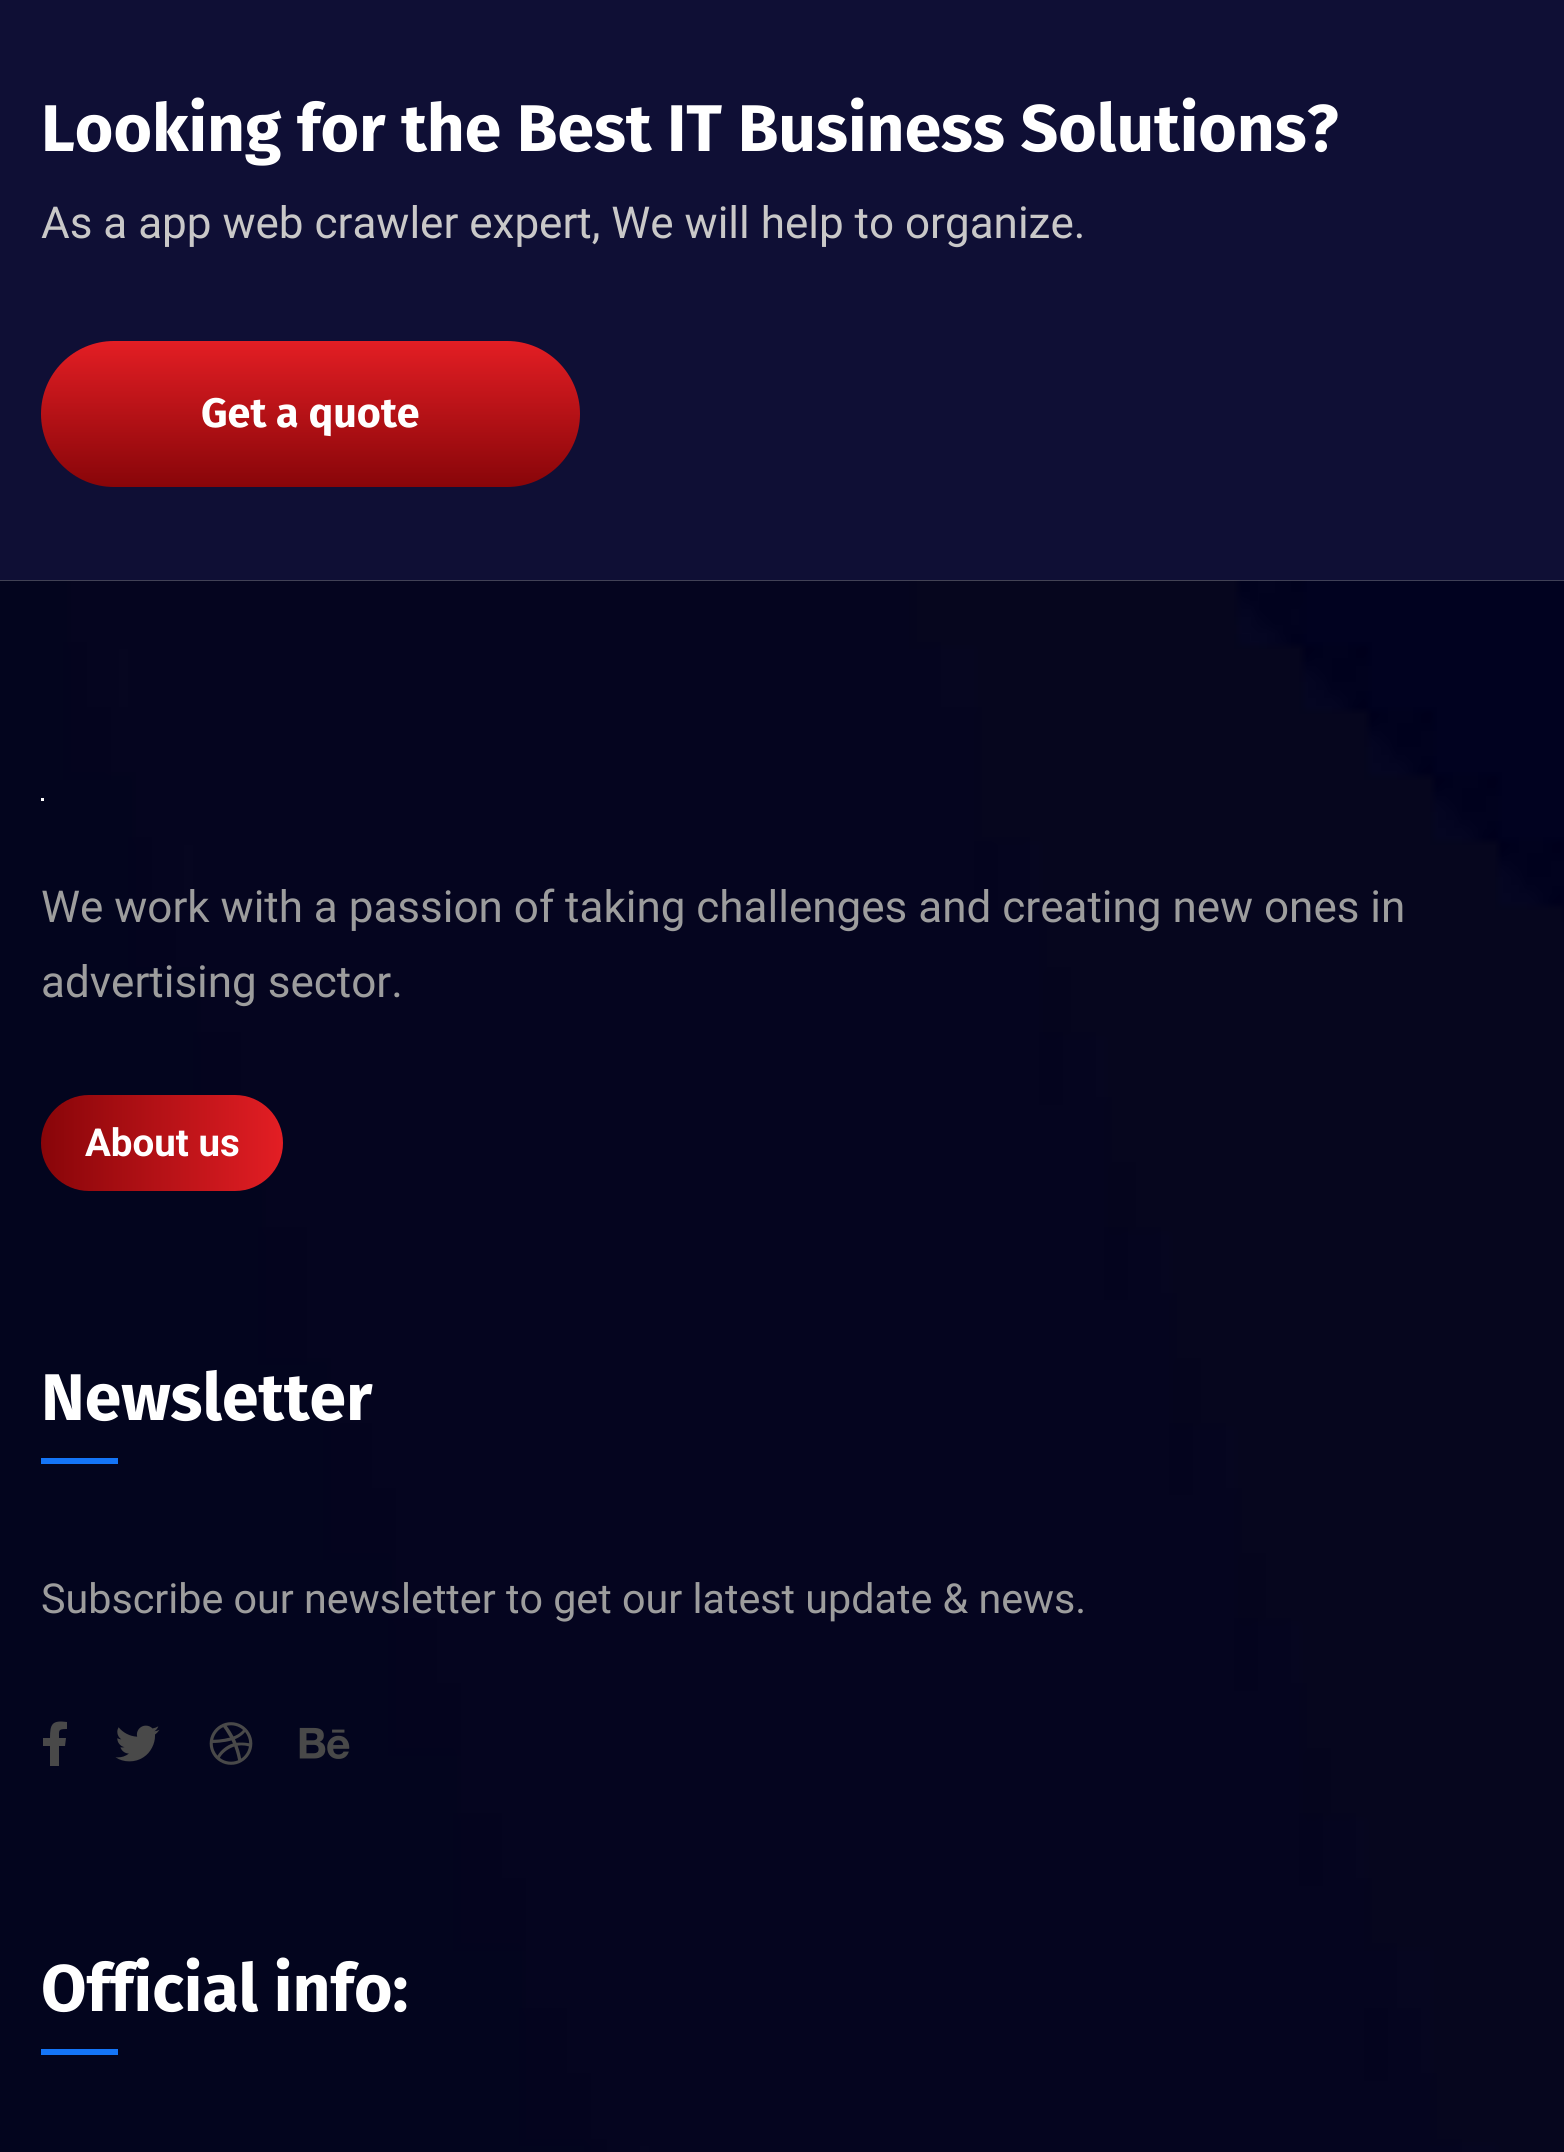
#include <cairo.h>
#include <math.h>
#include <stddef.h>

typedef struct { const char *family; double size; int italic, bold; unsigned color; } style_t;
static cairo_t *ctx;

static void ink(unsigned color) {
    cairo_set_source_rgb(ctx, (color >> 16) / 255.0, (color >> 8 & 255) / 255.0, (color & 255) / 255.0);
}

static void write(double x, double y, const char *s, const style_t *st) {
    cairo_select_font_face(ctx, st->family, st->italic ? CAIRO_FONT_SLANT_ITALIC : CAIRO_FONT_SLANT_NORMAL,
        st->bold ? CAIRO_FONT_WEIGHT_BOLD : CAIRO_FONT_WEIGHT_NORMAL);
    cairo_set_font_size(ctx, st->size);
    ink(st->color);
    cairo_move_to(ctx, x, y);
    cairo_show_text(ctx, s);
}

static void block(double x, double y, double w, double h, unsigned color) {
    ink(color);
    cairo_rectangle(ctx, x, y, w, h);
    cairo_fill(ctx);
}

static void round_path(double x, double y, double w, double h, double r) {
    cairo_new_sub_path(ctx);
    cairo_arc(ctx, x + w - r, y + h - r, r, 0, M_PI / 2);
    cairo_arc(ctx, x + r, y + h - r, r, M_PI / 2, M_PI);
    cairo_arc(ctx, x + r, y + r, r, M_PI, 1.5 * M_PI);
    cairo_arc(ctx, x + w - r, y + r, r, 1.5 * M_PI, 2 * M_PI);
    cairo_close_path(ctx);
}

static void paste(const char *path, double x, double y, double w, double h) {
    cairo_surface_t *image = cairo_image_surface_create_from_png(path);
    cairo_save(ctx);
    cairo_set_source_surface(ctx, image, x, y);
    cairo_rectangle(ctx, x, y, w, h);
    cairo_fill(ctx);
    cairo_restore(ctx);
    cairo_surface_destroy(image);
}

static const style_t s1 = {"Fira Sans", 66, 0, 1, 0xffffff};
static const style_t s2 = {"Roboto", 44, 0, 0, 0xc9c8c8};
static const style_t s3 = {"Fira Sans", 41.25, 0, 1, 0xffffff};
static const style_t s4 = {"Roboto", 44, 0, 0, 0x9d9d9d};
static const style_t s5 = {"Roboto", 38.5, 0, 1, 0xffffff};
static const style_t s6 = {"Roboto", 41.25, 0, 0, 0x9d9d9d};

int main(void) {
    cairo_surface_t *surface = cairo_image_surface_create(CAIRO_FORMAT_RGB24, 1564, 2152);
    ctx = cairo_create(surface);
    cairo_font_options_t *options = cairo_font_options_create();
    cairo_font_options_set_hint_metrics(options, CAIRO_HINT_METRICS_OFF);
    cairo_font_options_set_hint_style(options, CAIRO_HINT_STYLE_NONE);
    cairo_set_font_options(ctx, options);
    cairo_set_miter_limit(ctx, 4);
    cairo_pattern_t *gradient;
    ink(0xffffff);
    cairo_paint(ctx);
    block(0, 0, 1564, 580, 0x0f0f35);
    write(41, 151, "Looking for the Best IT Business Solutions?", &s1);
    write(41, 238, "As a app web crawler expert, We will help to organize.", &s2);
    gradient = cairo_pattern_create_linear(311, 487, 311, 341);
    cairo_pattern_add_color_stop_rgba(gradient, 0, 0.533, 0.02, 0.035, 1);
    cairo_pattern_add_color_stop_rgba(gradient, 1, 0.89, 0.118, 0.141, 1);
    cairo_set_source(ctx, gradient);
    cairo_pattern_destroy(gradient);
    round_path(41, 341, 539, 146, 73);
    cairo_fill(ctx);
    write(201, 427, "Get a quote", &s3);
    paste("pic1.png", 0, 580, 1564, 1572);
    block(41, 798, 3, 3, 0xffffff);
    write(41, 922, "We work with a passion of taking challenges and creating new ones in", &s4);
    write(41, 997, "advertising sector.", &s4);
    gradient = cairo_pattern_create_linear(41, 1143, 525, 1143);
    cairo_pattern_add_color_stop_rgba(gradient, 0, 0.533, 0.02, 0.035, 1);
    cairo_pattern_add_color_stop_rgba(gradient, 0.5, 0.89, 0.118, 0.141, 1);
    cairo_pattern_add_color_stop_rgba(gradient, 1, 0.533, 0.02, 0.035, 1);
    cairo_set_source(ctx, gradient);
    cairo_pattern_destroy(gradient);
    round_path(41, 1095, 242, 96, 48);
    cairo_fill(ctx);
    write(85, 1156, "About us", &s5);
    write(41, 1420, "Newsletter", &s1);
    block(41, 1458, 77, 6, 0x1475f7);
    write(41, 1613, "Subscribe our newsletter to get our latest update & news.", &s6);
    ink(0x494949);
    cairo_new_path(ctx);
    cairo_move_to(ctx, 65, 1746);
    cairo_line_to(ctx, 59, 1746);
    cairo_line_to(ctx, 59, 1766);
    cairo_line_to(ctx, 50, 1766);
    cairo_line_to(ctx, 50, 1746);
    cairo_line_to(ctx, 43, 1746);
    cairo_line_to(ctx, 43, 1738);
    cairo_line_to(ctx, 50, 1738);
    cairo_curve_to(ctx, 50, 1724, 52, 1720, 67, 1722);
    cairo_line_to(ctx, 67, 1729);
    cairo_curve_to(ctx, 58, 1729, 59, 1730, 59, 1738);
    cairo_line_to(ctx, 66, 1738);
    cairo_close_path(ctx);
    cairo_fill(ctx);
    paste("pic2.png", 115, 1725, 45, 37);
    paste("pic3.png", 209, 1722, 44, 43);
    paste("pic4.png", 299, 1727, 51, 32);
    write(41, 2011, "Official info:", &s1);
    block(41, 2049, 77, 6, 0x1475f7);
    cairo_surface_write_to_png(surface, "screenshot.png");
    cairo_font_options_destroy(options);
    cairo_destroy(ctx);
    cairo_surface_destroy(surface);
    return 0;
}
